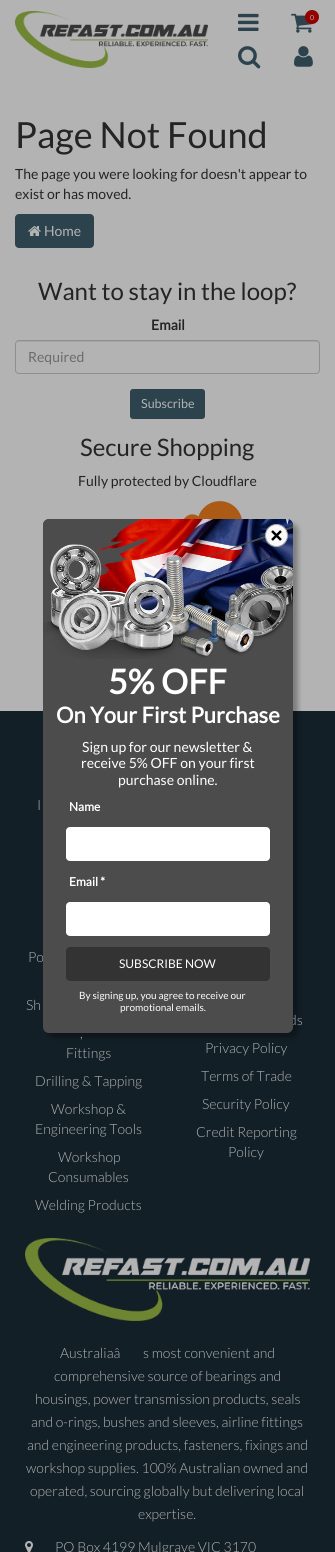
#include <cairo.h>
#include <math.h>
#include <stddef.h>

typedef struct { const char *family; double size; int italic, bold; unsigned color; } style_t;
static cairo_t *ctx;

static void ink(unsigned color) {
    cairo_set_source_rgb(ctx, (color >> 16) / 255.0, (color >> 8 & 255) / 255.0, (color & 255) / 255.0);
}

static void write(double x, double y, const char *s, const style_t *st) {
    cairo_select_font_face(ctx, st->family, st->italic ? CAIRO_FONT_SLANT_ITALIC : CAIRO_FONT_SLANT_NORMAL,
        st->bold ? CAIRO_FONT_WEIGHT_BOLD : CAIRO_FONT_WEIGHT_NORMAL);
    cairo_set_font_size(ctx, st->size);
    ink(st->color);
    cairo_move_to(ctx, x, y);
    cairo_show_text(ctx, s);
}

static void block(double x, double y, double w, double h, unsigned color) {
    ink(color);
    cairo_rectangle(ctx, x, y, w, h);
    cairo_fill(ctx);
}

static void round_path(double x, double y, double w, double h, double r) {
    cairo_new_sub_path(ctx);
    cairo_arc(ctx, x + w - r, y + h - r, r, 0, M_PI / 2);
    cairo_arc(ctx, x + r, y + h - r, r, M_PI / 2, M_PI);
    cairo_arc(ctx, x + r, y + r, r, M_PI, 1.5 * M_PI);
    cairo_arc(ctx, x + w - r, y + r, r, 1.5 * M_PI, 2 * M_PI);
    cairo_close_path(ctx);
}

static void blur_box(double x, double y, double w, double h, double r, double blur, double alpha) {
    cairo_push_group_with_content(ctx, CAIRO_CONTENT_ALPHA);
    cairo_set_operator(ctx, CAIRO_OPERATOR_SOURCE);
    for (int i = 15; i >= -15 && fmin(w, h) + blur * i / 3 > 0; i -= 2) {
        double e = blur * i / 6;
        cairo_set_source_rgba(ctx, 0, 0, 0, alpha * erfc((i - 1) / 8.5) / 2);
        round_path(x - e, y - e, w + 2 * e, h + 2 * e, fmax(0, fmin(r + e + blur * .6, fmin(w, h) / 2 + e)));
        cairo_fill(ctx);
    }
    cairo_pattern_t *soft = cairo_pop_group(ctx);
    cairo_mask(ctx, soft);
    cairo_pattern_destroy(soft);
}

static void paste(const char *path, double x, double y, double w, double h) {
    cairo_surface_t *image = cairo_image_surface_create_from_png(path);
    cairo_save(ctx);
    cairo_set_source_surface(ctx, image, x, y);
    cairo_rectangle(ctx, x, y, w, h);
    cairo_fill(ctx);
    cairo_restore(ctx);
    cairo_surface_destroy(image);
}

static const style_t s1 = {"Lato", 7, 0, 0, 0xb3b3b3};
static const style_t s2 = {"Lato", 36, 0, 0, 0x242424};
static const style_t s3 = {"Lato", 14, 0, 0, 0x242424};
static const style_t s4 = {"Lato", 14, 0, 0, 0xb3b3b3};
static const style_t s5 = {"Lato", 24, 0, 0, 0x242424};
static const style_t s6 = {"Lato", 14, 0, 1, 0x242424};
static const style_t s7 = {"Lato", 14, 0, 0, 0x6b6b6b};
static const style_t s8 = {"Lato", 12.5, 0, 0, 0xb3b3b3};
static const style_t s9 = {"Lato Light", 14, 0, 0, 0xb3b3b3};
static const style_t s10 = {"Lato", 34, 0, 1, 0xffffff};
static const style_t s11 = {"Lato", 22, 0, 1, 0xffffff};
static const style_t s12 = {"Lato", 14, 0, 0, 0xffffff};
static const style_t s13 = {"Lato", 12, 0, 1, 0xffffff};
static const style_t s14 = {"Lato", 12, 0, 0, 0xffffff};
static const style_t s15 = {"Lato", 10, 0, 0, 0xffffff};

int main(void) {
    cairo_surface_t *surface = cairo_image_surface_create(CAIRO_FORMAT_RGB24, 335, 1552);
    ctx = cairo_create(surface);
    cairo_font_options_t *options = cairo_font_options_create();
    cairo_font_options_set_hint_metrics(options, CAIRO_HINT_METRICS_OFF);
    cairo_font_options_set_hint_style(options, CAIRO_HINT_STYLE_NONE);
    cairo_set_font_options(ctx, options);
    cairo_set_miter_limit(ctx, 4);
    ink(0xb3b3b3);
    cairo_paint(ctx);
    paste("pic1.png", 15, 11, 193, 57);
    paste("pic2.png", 238, 13, 21, 18);
    paste("pic3.png", 291, 13, 23, 20);
    ink(0x930000);
    cairo_arc(ctx, 312, 17, 7, 0, 2 * M_PI);
    cairo_fill(ctx);
    write(310, 20, "0", &s1);
    paste("pic4.png", 238, 46, 23, 23);
    paste("pic5.png", 294, 46, 19, 21);
    write(15, 148, "Page Not Found", &s2);
    write(15, 179, "The page you were looking for doesn't appear to", &s3);
    write(15, 199, "exist or has moved.", &s3);
    ink(0x2c434d);
    round_path(15.5, 214.5, 78, 33, 3.5);
    cairo_fill_preserve(ctx);
    cairo_set_line_width(ctx, 1);
    cairo_stroke(ctx);
    paste("pic6.png", 28, 226, 13, 10);
    write(44, 236, "Home", &s4);
    write(38, 300, "Want to stay in the loop?", &s5);
    write(151, 330, "Email", &s6);
    ink(0xa5a5a5);
    cairo_new_path(ctx);
    cairo_move_to(ctx, 19, 342);
    cairo_line_to(ctx, 316, 342);
    cairo_curve_to(ctx, 318, 342, 319, 343, 319, 345);
    cairo_line_to(ctx, 318, 342);
    cairo_line_to(ctx, 317, 341);
    cairo_line_to(ctx, 19, 341);
    cairo_curve_to(ctx, 17, 341, 16, 343, 16, 345);
    cairo_curve_to(ctx, 16, 343, 17, 342, 19, 342);
    cairo_close_path(ctx);
    cairo_fill(ctx);
    round_path(15.5, 340.5, 304, 33, 3.5);
    ink(0x8f8f8f);
    cairo_stroke(ctx);
    write(28, 362, "Required", &s7);
    ink(0x2c434d);
    round_path(130.5, 389.5, 74, 29, 2.5);
    cairo_fill_preserve(ctx);
    cairo_stroke(ctx);
    write(141, 408, "Subscribe", &s8);
    write(80, 456, "Secure Shopping", &s5);
    write(78, 486, "Fully protected by Cloudflare", &s3);
    paste("pic7.png", 184, 501, 58, 18);
    block(0, 711, 335, 841, 0x121f27);
    ink(0x000000);
    blur_box(48, 524, 250, 514, 6, 2.5, 0.3);
    write(28, 962, "Po", &s9);
    write(289, 1025, "ds", &s9);
    ink(0x4c4c4c);
    round_path(43, 519, 250, 514, 6);
    cairo_fill(ctx);
    paste("pic9.png", 43, 519, 250, 140);
    ink(0xf9f9f9);
    cairo_arc(ctx, 276.5, 535.5, 11, 0, 2 * M_PI);
    cairo_fill_preserve(ctx);
    ink(0xaaaaaa);
    cairo_stroke(ctx);
    paste("pic8.png", 271, 530, 11, 11);
    write(108, 694, "5% OFF", &s10);
    write(56, 723, "On Your First Purchase", &s11);
    write(82, 752, "Sign up for our newsletter &", &s12);
    write(81, 768, "receive 5% OFF on your first", &s12);
    write(118, 785, "purchase online.", &s12);
    write(69, 811, "Name", &s13);
    round_path(66, 827, 204, 34, 4);
    cairo_fill(ctx);
    write(69, 886, "Email *", &s13);
    round_path(66, 902, 204, 34, 4);
    cairo_fill(ctx);
    ink(0x333333);
    round_path(66, 947, 204, 34, 4);
    cairo_fill(ctx);
    write(119, 968, "SUBSCRIBE NOW", &s14);
    write(79, 999, "By signing up, you agree to receive our", &s15);
    write(120, 1011, "promotional emails.", &s15);
    write(37, 810, "I", &s9);
    write(26, 1010, "Sh", &s9);
    write(80, 1038, ",", &s9);
    write(66, 1058, "Fittings", &s9);
    write(35, 1086, "Drilling & Tapping", &s9);
    write(51, 1114, "Workshop &", &s9);
    write(35, 1134, "Engineering Tools", &s9);
    write(58, 1162, "Workshop", &s9);
    write(48, 1182, "Consumables", &s9);
    write(35, 1210, "Welding Products", &s9);
    write(205, 1053, "Privacy Policy", &s9);
    write(201, 1081, "Terms of Trade", &s9);
    write(202, 1109, "Security Policy", &s9);
    write(196, 1137, "Credit Reporting", &s9);
    write(228, 1157, "Policy", &s9);
    paste("pic10.png", 25, 1238, 285, 83);
    write(60, 1358, "Australiaâ", &s9);
    write(143, 1358, "s most convenient and", &s9);
    write(54, 1381, "comprehensive source of bearings and", &s9);
    write(35, 1404, "housings, power transmission products, seals", &s9);
    write(31, 1427, "and o-rings, bushes and sleeves, airline fittings", &s9);
    write(27, 1450, "and engineering products, fasteners, fixings and", &s9);
    write(26, 1473, "workshop supplies. 100% Australian owned and", &s9);
    write(30, 1496, "operated, sourcing globally but delivering local", &s9);
    write(138, 1519, "expertise.", &s9);
    paste("pic11.png", 25, 1541, 8, 11);
    write(55, 1552, "PO Box 4199 Mulgrave VIC 3170", &s9);
    cairo_surface_write_to_png(surface, "screenshot.png");
    cairo_font_options_destroy(options);
    cairo_destroy(ctx);
    cairo_surface_destroy(surface);
    return 0;
}
